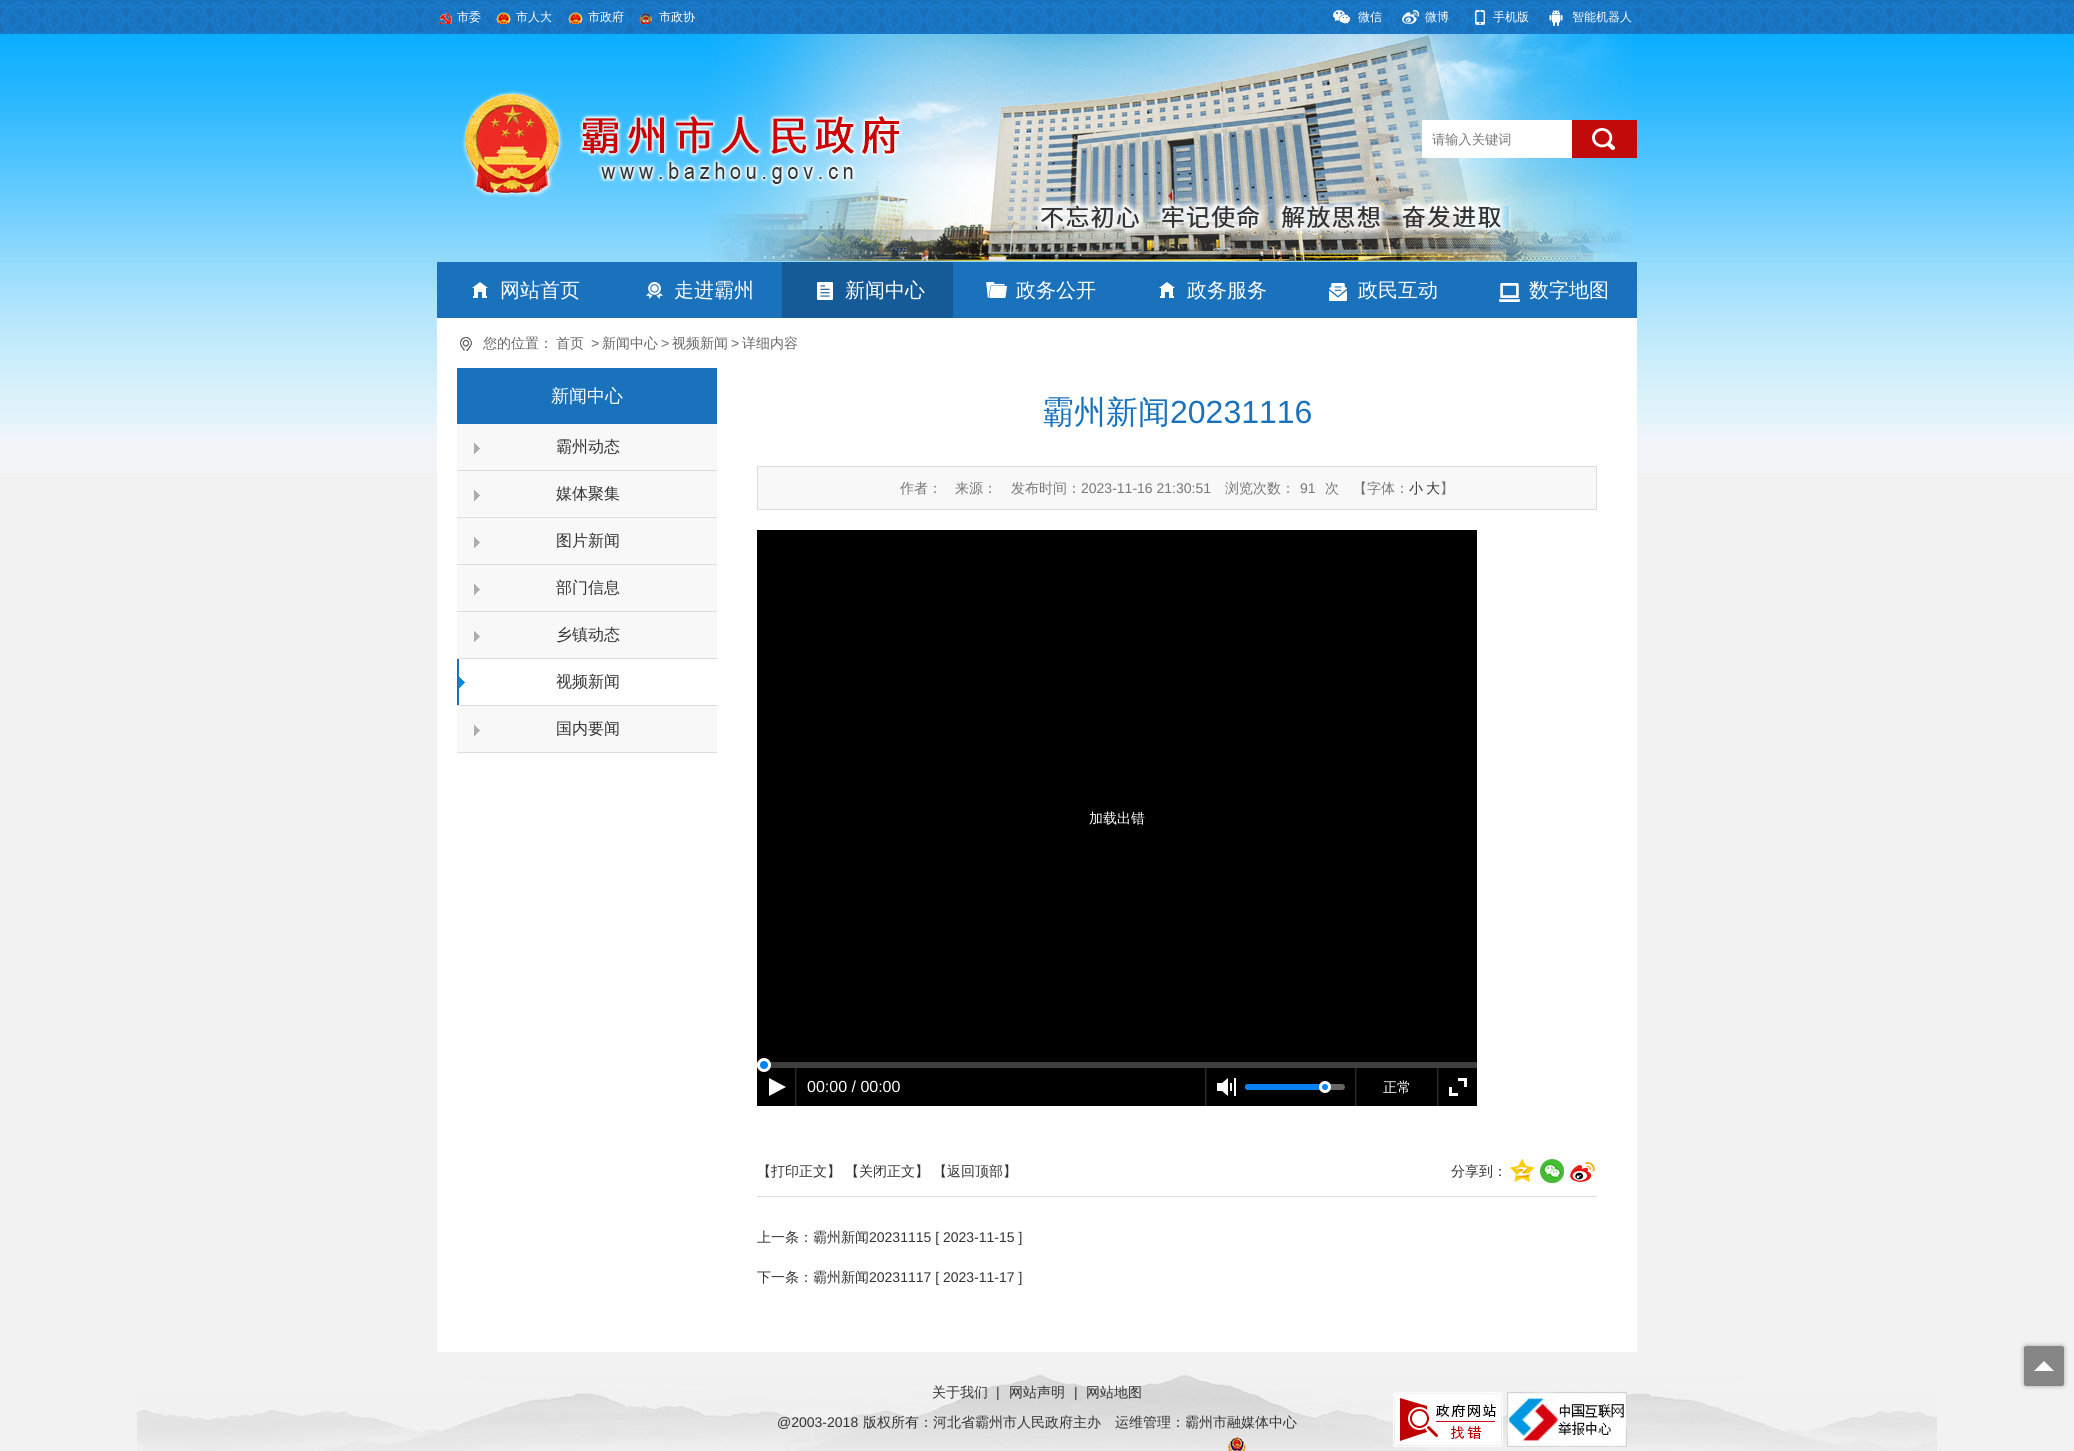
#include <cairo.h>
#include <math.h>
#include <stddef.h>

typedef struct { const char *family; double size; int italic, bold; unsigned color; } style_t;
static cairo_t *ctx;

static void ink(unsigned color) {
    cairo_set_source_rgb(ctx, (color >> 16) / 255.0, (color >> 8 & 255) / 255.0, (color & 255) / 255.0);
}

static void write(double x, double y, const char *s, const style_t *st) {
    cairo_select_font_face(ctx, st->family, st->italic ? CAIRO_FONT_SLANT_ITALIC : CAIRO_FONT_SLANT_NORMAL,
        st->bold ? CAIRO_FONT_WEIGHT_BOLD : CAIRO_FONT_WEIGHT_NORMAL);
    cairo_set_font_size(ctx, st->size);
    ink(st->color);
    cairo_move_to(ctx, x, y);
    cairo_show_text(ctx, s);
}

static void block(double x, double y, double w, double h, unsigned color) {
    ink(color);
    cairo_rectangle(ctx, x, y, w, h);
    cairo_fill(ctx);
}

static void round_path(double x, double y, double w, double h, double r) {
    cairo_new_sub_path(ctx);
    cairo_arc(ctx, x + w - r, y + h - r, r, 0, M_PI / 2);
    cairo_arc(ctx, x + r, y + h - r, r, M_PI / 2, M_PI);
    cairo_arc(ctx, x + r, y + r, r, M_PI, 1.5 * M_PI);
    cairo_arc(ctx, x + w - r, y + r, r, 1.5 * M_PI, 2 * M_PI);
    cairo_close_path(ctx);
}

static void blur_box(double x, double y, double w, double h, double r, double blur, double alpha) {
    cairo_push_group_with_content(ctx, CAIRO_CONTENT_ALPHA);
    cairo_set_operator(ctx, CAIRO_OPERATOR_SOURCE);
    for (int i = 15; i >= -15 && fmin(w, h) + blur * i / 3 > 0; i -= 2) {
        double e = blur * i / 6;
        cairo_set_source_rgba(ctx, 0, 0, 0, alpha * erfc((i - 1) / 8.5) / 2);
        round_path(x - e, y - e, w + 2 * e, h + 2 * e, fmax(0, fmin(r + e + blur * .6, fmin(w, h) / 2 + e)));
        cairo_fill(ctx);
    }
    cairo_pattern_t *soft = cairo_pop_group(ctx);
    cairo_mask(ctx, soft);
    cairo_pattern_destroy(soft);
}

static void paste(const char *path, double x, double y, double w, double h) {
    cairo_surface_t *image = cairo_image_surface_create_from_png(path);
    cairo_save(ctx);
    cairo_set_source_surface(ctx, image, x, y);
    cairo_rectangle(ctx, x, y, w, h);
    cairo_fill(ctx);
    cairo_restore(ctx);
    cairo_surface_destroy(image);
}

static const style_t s1 = {"WenQuanYi Zen Hei Medium", 12, 0, 0, 0xffffff};
static const style_t s2 = {"WenQuanYi Zen Hei Medium", 13.25, 0, 0, 0x777777};
static const style_t s3 = {"WenQuanYi Zen Hei Medium", 20, 0, 0, 0xffffff};
static const style_t s4 = {"WenQuanYi Zen Hei Medium", 14, 0, 0, 0x666666};
static const style_t s5 = {"Liberation Sans", 14, 0, 0, 0x666666};
static const style_t s6 = {"WenQuanYi Zen Hei Medium", 18, 0, 0, 0xffffff};
static const style_t s7 = {"WenQuanYi Zen Hei Medium", 16, 0, 0, 0x333333};
static const style_t s8 = {"WenQuanYi Zen Hei Medium", 32, 0, 0, 0x1a72bd};
static const style_t s9 = {"Liberation Sans", 32, 0, 0, 0x1a72bd};
static const style_t s10 = {"WenQuanYi Zen Hei Medium", 14, 0, 0, 0x777777};
static const style_t s11 = {"Liberation Sans", 14, 0, 0, 0x777777};
static const style_t s12 = {"WenQuanYi Zen Hei Medium", 14, 0, 0, 0x333333};
static const style_t s13 = {"WenQuanYi Zen Hei Medium", 14, 0, 0, 0xffffff};
static const style_t s14 = {"Liberation Sans", 16, 0, 0, 0xffffff};
static const style_t s15 = {"Liberation Sans", 14, 0, 0, 0x333333};

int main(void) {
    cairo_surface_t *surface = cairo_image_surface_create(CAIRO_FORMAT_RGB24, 2074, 1451);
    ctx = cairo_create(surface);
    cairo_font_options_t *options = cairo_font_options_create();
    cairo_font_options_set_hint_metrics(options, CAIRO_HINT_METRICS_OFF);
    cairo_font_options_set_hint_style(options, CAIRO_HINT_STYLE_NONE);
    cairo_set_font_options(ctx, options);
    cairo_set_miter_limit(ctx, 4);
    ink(0xf2f2f2);
    cairo_paint(ctx);
    paste("pic1.png", 0, 34, 2074, 439);
    paste("pic2.png", 0, 0, 2074, 34);
    paste("pic3.png", 439, 12, 13, 12);
    write(457, 21, "市委", &s1);
    paste("pic4.png", 496, 12, 15, 12);
    write(516, 21, "市人大", &s1);
    paste("pic5.png", 568, 12, 15, 12);
    write(588, 21, "市政府", &s1);
    paste("pic6.png", 639, 13, 13, 11);
    write(659, 21, "市政协", &s1);
    paste("pic7.png", 1333, 10, 17, 14);
    write(1358, 21, "微信", &s1);
    paste("pic8.png", 1402, 10, 17, 14);
    write(1425, 21, "微博", &s1);
    paste("pic9.png", 1475, 10, 10, 15);
    write(1493, 21, "手机版", &s1);
    paste("pic10.png", 1549, 10, 14, 16);
    write(1572, 21, "智能机器人", &s1);
    paste("pic12.png", 711, 34, 921, 227);
    paste("pic11.png", 462, 90, 441, 108);
    block(1422, 120, 150, 38, 0xffffff);
    write(1432, 144, "请输入关键词", &s2);
    block(1572, 120, 65, 38, 0xc10a0a);
    paste("pic13.png", 1592, 128, 23, 22);
    block(437, 262, 1200, 56, 0x1a72bd);
    paste("pic14.png", 472, 282, 16, 16);
    write(500, 297, "网站首页", &s3);
    paste("pic15.png", 646, 282, 17, 17);
    write(674, 297, "走进霸州", &s3);
    block(782, 262, 171, 56, 0x155b97);
    paste("pic16.png", 817, 282, 16, 18);
    write(845, 297, "新闻中心", &s3);
    paste("pic17.png", 986, 282, 21, 16);
    write(1016, 297, "政务公开", &s3);
    paste("pic14.png", 1159, 282, 16, 16);
    write(1187, 297, "政务服务", &s3);
    paste("pic18.png", 1329, 283, 18, 18);
    write(1358, 297, "政民互动", &s3);
    paste("pic19.png", 1499, 283, 21, 19);
    write(1529, 297, "数字地图", &s3);
    block(437, 318, 1200, 1034, 0xffffff);
    paste("pic20.png", 460, 337, 12, 14);
    write(483, 348, "您的位置：", &s4);
    write(556, 348, "首页", &s4);
    write(591, 348, ">", &s5);
    write(602, 348, "新闻中心", &s4);
    write(661, 348, ">", &s5);
    write(672, 348, "视频新闻", &s4);
    write(731, 348, ">", &s5);
    write(742, 348, "详细内容", &s4);
    block(457, 424, 260, 328, 0xf8f8f8);
    block(457, 368, 260, 56, 0x1a72bd);
    write(551, 402, "新闻中心", &s6);
    block(457, 470, 260, 1, 0xdddddd);
    paste("pic21.png", 474, 443, 6, 11);
    write(556, 452, "霸州动态", &s7);
    block(457, 517, 260, 1, 0xdddddd);
    paste("pic21.png", 474, 490, 6, 11);
    write(556, 499, "媒体聚集", &s7);
    block(457, 564, 260, 1, 0xdddddd);
    paste("pic21.png", 474, 537, 6, 11);
    write(556, 546, "图片新闻", &s7);
    block(457, 611, 260, 1, 0xdddddd);
    paste("pic21.png", 474, 584, 6, 11);
    write(556, 593, "部门信息", &s7);
    block(457, 658, 260, 1, 0xdddddd);
    paste("pic21.png", 474, 631, 6, 11);
    write(556, 640, "乡镇动态", &s7);
    block(457, 705, 260, 1, 0xdddddd);
    block(459, 659, 258, 46, 0xffffff);
    paste("pic22.png", 459, 677, 6, 11);
    block(457, 659, 2, 46, 0x1a72bd);
    write(556, 687, "视频新闻", &s7);
    block(457, 752, 260, 1, 0xdddddd);
    paste("pic21.png", 474, 725, 6, 11);
    write(556, 734, "国内要闻", &s7);
    write(1042, 423, "霸州新闻", &s8);
    write(1170, 423, "20231116", &s9);
    ink(0xf8f8f8);
    cairo_rectangle(ctx, 757.5, 466.5, 839, 43);
    cairo_fill_preserve(ctx);
    ink(0xdddddd);
    cairo_set_line_width(ctx, 1);
    cairo_stroke(ctx);
    write(900, 493, "作者：", &s10);
    write(955, 493, "来源：", &s10);
    write(1011, 493, "发布时间：", &s10);
    write(1081, 493, "2023-11-16 21:30:51", &s11);
    write(1225, 493, "浏览次数：", &s10);
    write(1300, 493, "91", &s11);
    write(1325, 493, "次", &s10);
    write(1353, 493, "【字体：", &s10);
    write(1409, 493, "小", &s12);
    write(1426, 493, "大", &s12);
    write(1440, 493, "】", &s10);
    block(757, 530, 720, 576, 0x000000);
    write(1089, 823, "加载出错", &s13);
    block(770, 1062, 707, 6, 0x3f3f3f);
    block(757, 1062, 1, 6, 0x6f6f6f);
    ink(0xffffff);
    cairo_new_path(ctx);
    cairo_arc(ctx, 764, 1065, 7, 0, 2 * M_PI);
    cairo_fill(ctx);
    ink(0x0782f5);
    cairo_arc(ctx, 764, 1065, 4, 0, 2 * M_PI);
    cairo_fill(ctx);
    paste("pic23.png", 769, 1078, 17, 18);
    block(796, 1068, 1, 38, 0x131313);
    block(795, 1068, 1, 38, 0x2b2b2b);
    write(807, 1092, "00:00 / 00:00", &s14);
    block(1206, 1068, 1, 38, 0x131313);
    block(1205, 1068, 1, 38, 0x2b2b2b);
    paste("pic24.png", 1217, 1078, 19, 18);
    ink(0x666666);
    round_path(1245, 1084, 100, 6, 3);
    cairo_fill(ctx);
    ink(0x0782f5);
    round_path(1245, 1084, 80, 6, 3);
    cairo_fill(ctx);
    ink(0xffffff);
    cairo_arc(ctx, 1325, 1087, 6, 0, 2 * M_PI);
    cairo_fill(ctx);
    ink(0x0782f5);
    cairo_arc(ctx, 1325, 1087, 3, 0, 2 * M_PI);
    cairo_fill(ctx);
    block(1356, 1068, 1, 38, 0x131313);
    block(1355, 1068, 1, 38, 0x2b2b2b);
    write(1383, 1092, "正常", &s13);
    block(1438, 1068, 1, 38, 0x131313);
    block(1437, 1068, 1, 38, 0x2b2b2b);
    paste("pic25.png", 1449, 1078, 18, 18);
    block(757, 1196, 840, 1, 0xdddddd);
    write(757, 1176, "【打印正文】", &s12);
    write(845, 1176, "【关闭正文】", &s12);
    write(933, 1176, "【返回顶部】", &s12);
    write(1451, 1176, "分享到：", &s12);
    paste("pic26.png", 1510, 1159, 24, 23);
    paste("pic27.png", 1540, 1159, 24, 24);
    paste("pic28.png", 1570, 1162, 25, 20);
    write(757, 1242, "上一条：霸州新闻", &s12);
    write(869, 1242, "20231115 [ 2023-11-15 ]", &s15);
    write(757, 1282, "下一条：霸州新闻", &s12);
    write(869, 1282, "20231117 [ 2023-11-17 ]", &s15);
    paste("pic29.png", 137, 1374, 1800, 77);
    write(932, 1397, "关于我们", &s12);
    write(996, 1397, "|", &s15);
    write(1009, 1397, "网站声明", &s12);
    write(1074, 1397, "|", &s15);
    write(1086, 1397, "网站地图", &s12);
    write(777, 1427, "@2003-2018", &s15);
    write(863, 1427, "版权所有：河北省霸州市人民政府主办　运维管理：霸州市融媒体中心", &s12);
    paste("pic30.png", 1228, 1437, 18, 14);
    paste("pic31.png", 1393, 1392, 110, 55);
    paste("pic32.png", 1507, 1392, 120, 55);
    cairo_save(ctx);
    cairo_set_fill_rule(ctx, CAIRO_FILL_RULE_EVEN_ODD);
    cairo_new_path(ctx);
    cairo_move_to(ctx, 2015, 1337);
    cairo_line_to(ctx, 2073, 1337);
    cairo_line_to(ctx, 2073, 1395);
    cairo_line_to(ctx, 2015, 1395);
    cairo_close_path(ctx);
    cairo_move_to(ctx, 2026, 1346);
    cairo_line_to(ctx, 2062, 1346);
    cairo_curve_to(ctx, 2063, 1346, 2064, 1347, 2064, 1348);
    cairo_line_to(ctx, 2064, 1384);
    cairo_curve_to(ctx, 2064, 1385, 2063, 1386, 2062, 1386);
    cairo_line_to(ctx, 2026, 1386);
    cairo_curve_to(ctx, 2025, 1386, 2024, 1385, 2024, 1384);
    cairo_line_to(ctx, 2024, 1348);
    cairo_curve_to(ctx, 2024, 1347, 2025, 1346, 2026, 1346);
    cairo_close_path(ctx);
    cairo_clip(ctx);
    ink(0xa5a5a5);
    blur_box(2024, 1346, 40, 40, 2, 2.5, 1);
    cairo_restore(ctx);
    cairo_set_source_rgba(ctx, 0.094, 0.094, 0.094, 0.5);
    round_path(2024, 1346, 40, 40, 2);
    cairo_fill(ctx);
    ink(0xfefefe);
    cairo_new_path(ctx);
    cairo_move_to(ctx, 2054, 1371);
    cairo_line_to(ctx, 2034, 1371);
    cairo_line_to(ctx, 2044, 1361);
    cairo_close_path(ctx);
    cairo_fill(ctx);
    cairo_surface_write_to_png(surface, "screenshot.png");
    cairo_font_options_destroy(options);
    cairo_destroy(ctx);
    cairo_surface_destroy(surface);
    return 0;
}
